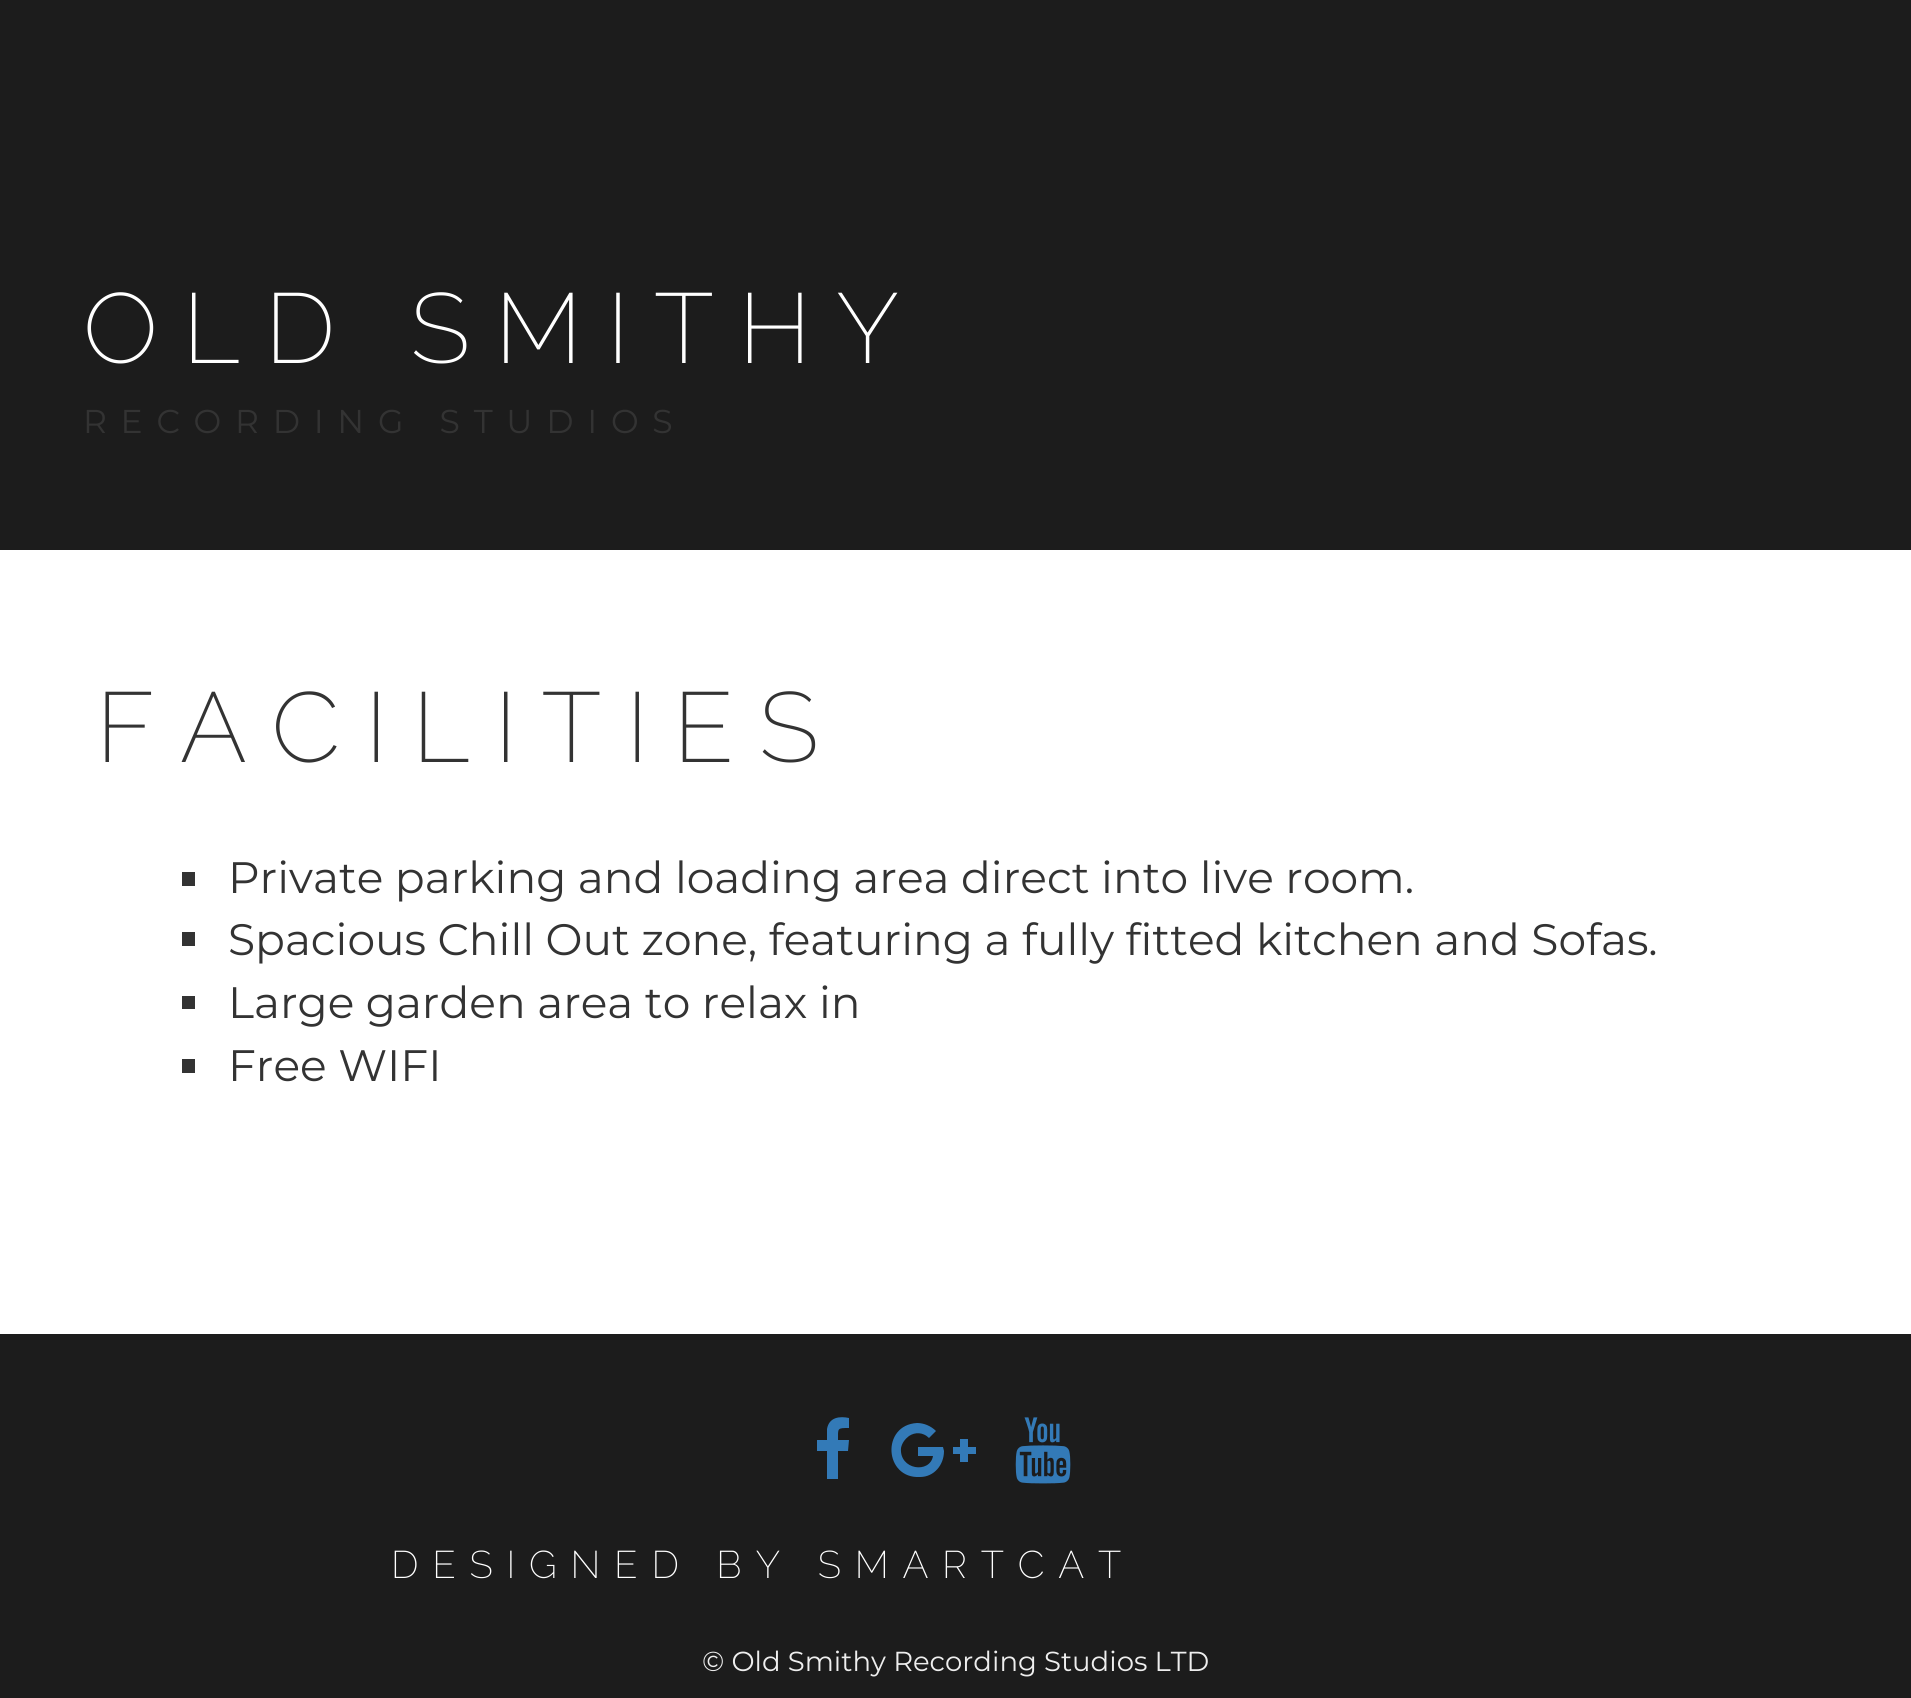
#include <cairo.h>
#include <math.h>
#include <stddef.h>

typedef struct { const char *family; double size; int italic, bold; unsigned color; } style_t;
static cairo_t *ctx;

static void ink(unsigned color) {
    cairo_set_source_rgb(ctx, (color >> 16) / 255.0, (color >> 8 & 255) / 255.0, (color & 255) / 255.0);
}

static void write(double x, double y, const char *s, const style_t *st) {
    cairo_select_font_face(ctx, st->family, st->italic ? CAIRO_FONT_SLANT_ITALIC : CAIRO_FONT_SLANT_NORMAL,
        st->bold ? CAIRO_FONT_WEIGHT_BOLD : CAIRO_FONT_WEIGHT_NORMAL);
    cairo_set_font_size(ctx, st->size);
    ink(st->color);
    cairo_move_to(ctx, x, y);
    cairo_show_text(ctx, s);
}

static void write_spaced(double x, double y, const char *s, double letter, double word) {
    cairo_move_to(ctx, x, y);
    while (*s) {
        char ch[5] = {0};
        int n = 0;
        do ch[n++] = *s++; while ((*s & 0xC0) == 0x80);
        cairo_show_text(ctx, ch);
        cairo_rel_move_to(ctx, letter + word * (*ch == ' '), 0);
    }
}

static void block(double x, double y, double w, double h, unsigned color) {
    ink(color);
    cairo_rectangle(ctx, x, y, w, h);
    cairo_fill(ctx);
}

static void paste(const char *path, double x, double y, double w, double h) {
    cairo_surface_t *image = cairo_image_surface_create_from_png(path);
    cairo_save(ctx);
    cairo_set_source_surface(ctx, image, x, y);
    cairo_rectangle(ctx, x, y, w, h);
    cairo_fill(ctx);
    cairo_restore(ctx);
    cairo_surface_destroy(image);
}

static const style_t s1 = {"Montserrat", 44, 0, 0, 0x333333};
static const style_t s2 = {"Montserrat", 27.5, 0, 0, 0xeeeeee};

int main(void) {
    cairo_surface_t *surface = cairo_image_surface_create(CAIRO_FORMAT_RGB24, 1911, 1698);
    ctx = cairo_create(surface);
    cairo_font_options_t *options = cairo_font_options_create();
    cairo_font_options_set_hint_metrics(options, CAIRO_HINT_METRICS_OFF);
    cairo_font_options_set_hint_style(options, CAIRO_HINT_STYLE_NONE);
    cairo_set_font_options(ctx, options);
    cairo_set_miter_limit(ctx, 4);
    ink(0xffffff);
    cairo_paint(ctx);
    block(0, 0, 1911, 550, 0x1c1c1c);
    cairo_select_font_face(ctx, "Raleway ExtraLight", CAIRO_FONT_SLANT_NORMAL, CAIRO_FONT_WEIGHT_NORMAL);
    cairo_set_font_size(ctx, 99);
    ink(0xffffff);
    write_spaced(83, 363, "OLD SMITHY", 24.75, 0);
    cairo_select_font_face(ctx, "Montserrat", CAIRO_FONT_SLANT_NORMAL, CAIRO_FONT_WEIGHT_NORMAL);
    cairo_set_font_size(ctx, 33);
    ink(0x333333);
    write_spaced(83, 433, "RECORDING STUDIOS", 13.75, 0);
    cairo_select_font_face(ctx, "Raleway ExtraLight", CAIRO_FONT_SLANT_NORMAL, CAIRO_FONT_WEIGHT_NORMAL);
    cairo_set_font_size(ctx, 99);
    write_spaced(96, 762, "FACILITIES", 24.75, 0);
    block(182, 872, 13, 14, 0x333333);
    write(228, 893, "Private parking and loading area direct into live room.", &s1);
    block(182, 932, 13, 14, 0x333333);
    write(228, 955, "Spacious Chill Out zone, featuring a fully fitted kitchen and Sofas.", &s1);
    block(182, 996, 13, 13, 0x333333);
    write(228, 1018, "Large garden area to relax in", &s1);
    block(182, 1059, 13, 14, 0x333333);
    write(228, 1081, "Free WIFI", &s1);
    block(0, 1334, 1911, 364, 0x1c1c1c);
    ink(0x337ab7);
    cairo_new_path(ctx);
    cairo_move_to(ctx, 849, 1418);
    cairo_line_to(ctx, 849, 1428);
    cairo_curve_to(ctx, 837, 1428, 838, 1428, 838, 1440);
    cairo_line_to(ctx, 849, 1440);
    cairo_line_to(ctx, 848, 1451);
    cairo_line_to(ctx, 838, 1451);
    cairo_line_to(ctx, 838, 1479);
    cairo_line_to(ctx, 827, 1479);
    cairo_line_to(ctx, 827, 1451);
    cairo_line_to(ctx, 817, 1451);
    cairo_line_to(ctx, 817, 1440);
    cairo_line_to(ctx, 827, 1440);
    cairo_line_to(ctx, 827, 1429);
    cairo_curve_to(ctx, 829, 1417, 840, 1416, 849, 1418);
    cairo_close_path(ctx);
    cairo_fill(ctx);
    cairo_new_path(ctx);
    cairo_move_to(ctx, 944, 1451);
    cairo_curve_to(ctx, 944, 1465, 934, 1477, 920, 1477);
    cairo_curve_to(ctx, 884, 1479, 881, 1425, 917, 1423);
    cairo_curve_to(ctx, 924, 1423, 931, 1426, 936, 1431);
    cairo_line_to(ctx, 929, 1438);
    cairo_curve_to(ctx, 923, 1432, 915, 1432, 909, 1436);
    cairo_curve_to(ctx, 905, 1439, 902, 1443, 901, 1448);
    cairo_curve_to(ctx, 899, 1470, 930, 1474, 933, 1456);
    cairo_line_to(ctx, 918, 1456);
    cairo_line_to(ctx, 918, 1447);
    cairo_line_to(ctx, 943, 1447);
    cairo_close_path(ctx);
    cairo_move_to(ctx, 976, 1447);
    cairo_line_to(ctx, 976, 1454);
    cairo_line_to(ctx, 968, 1454);
    cairo_line_to(ctx, 968, 1462);
    cairo_line_to(ctx, 960, 1462);
    cairo_line_to(ctx, 960, 1454);
    cairo_line_to(ctx, 953, 1454);
    cairo_line_to(ctx, 953, 1447);
    cairo_line_to(ctx, 960, 1447);
    cairo_line_to(ctx, 960, 1439);
    cairo_line_to(ctx, 968, 1439);
    cairo_line_to(ctx, 968, 1447);
    cairo_close_path(ctx);
    cairo_fill(ctx);
    paste("pic1.png", 1015, 1417, 56, 67);
    cairo_select_font_face(ctx, "Raleway ExtraLight", CAIRO_FONT_SLANT_NORMAL, CAIRO_FONT_WEIGHT_NORMAL);
    cairo_set_font_size(ctx, 38.5);
    ink(0xffffff);
    write_spaced(391, 1578, "DESIGNED BY SMARTCAT", 13.75, 0);
    write(702, 1671, "© Old Smithy Recording Studios LTD", &s2);
    cairo_surface_write_to_png(surface, "screenshot.png");
    cairo_font_options_destroy(options);
    cairo_destroy(ctx);
    cairo_surface_destroy(surface);
    return 0;
}
